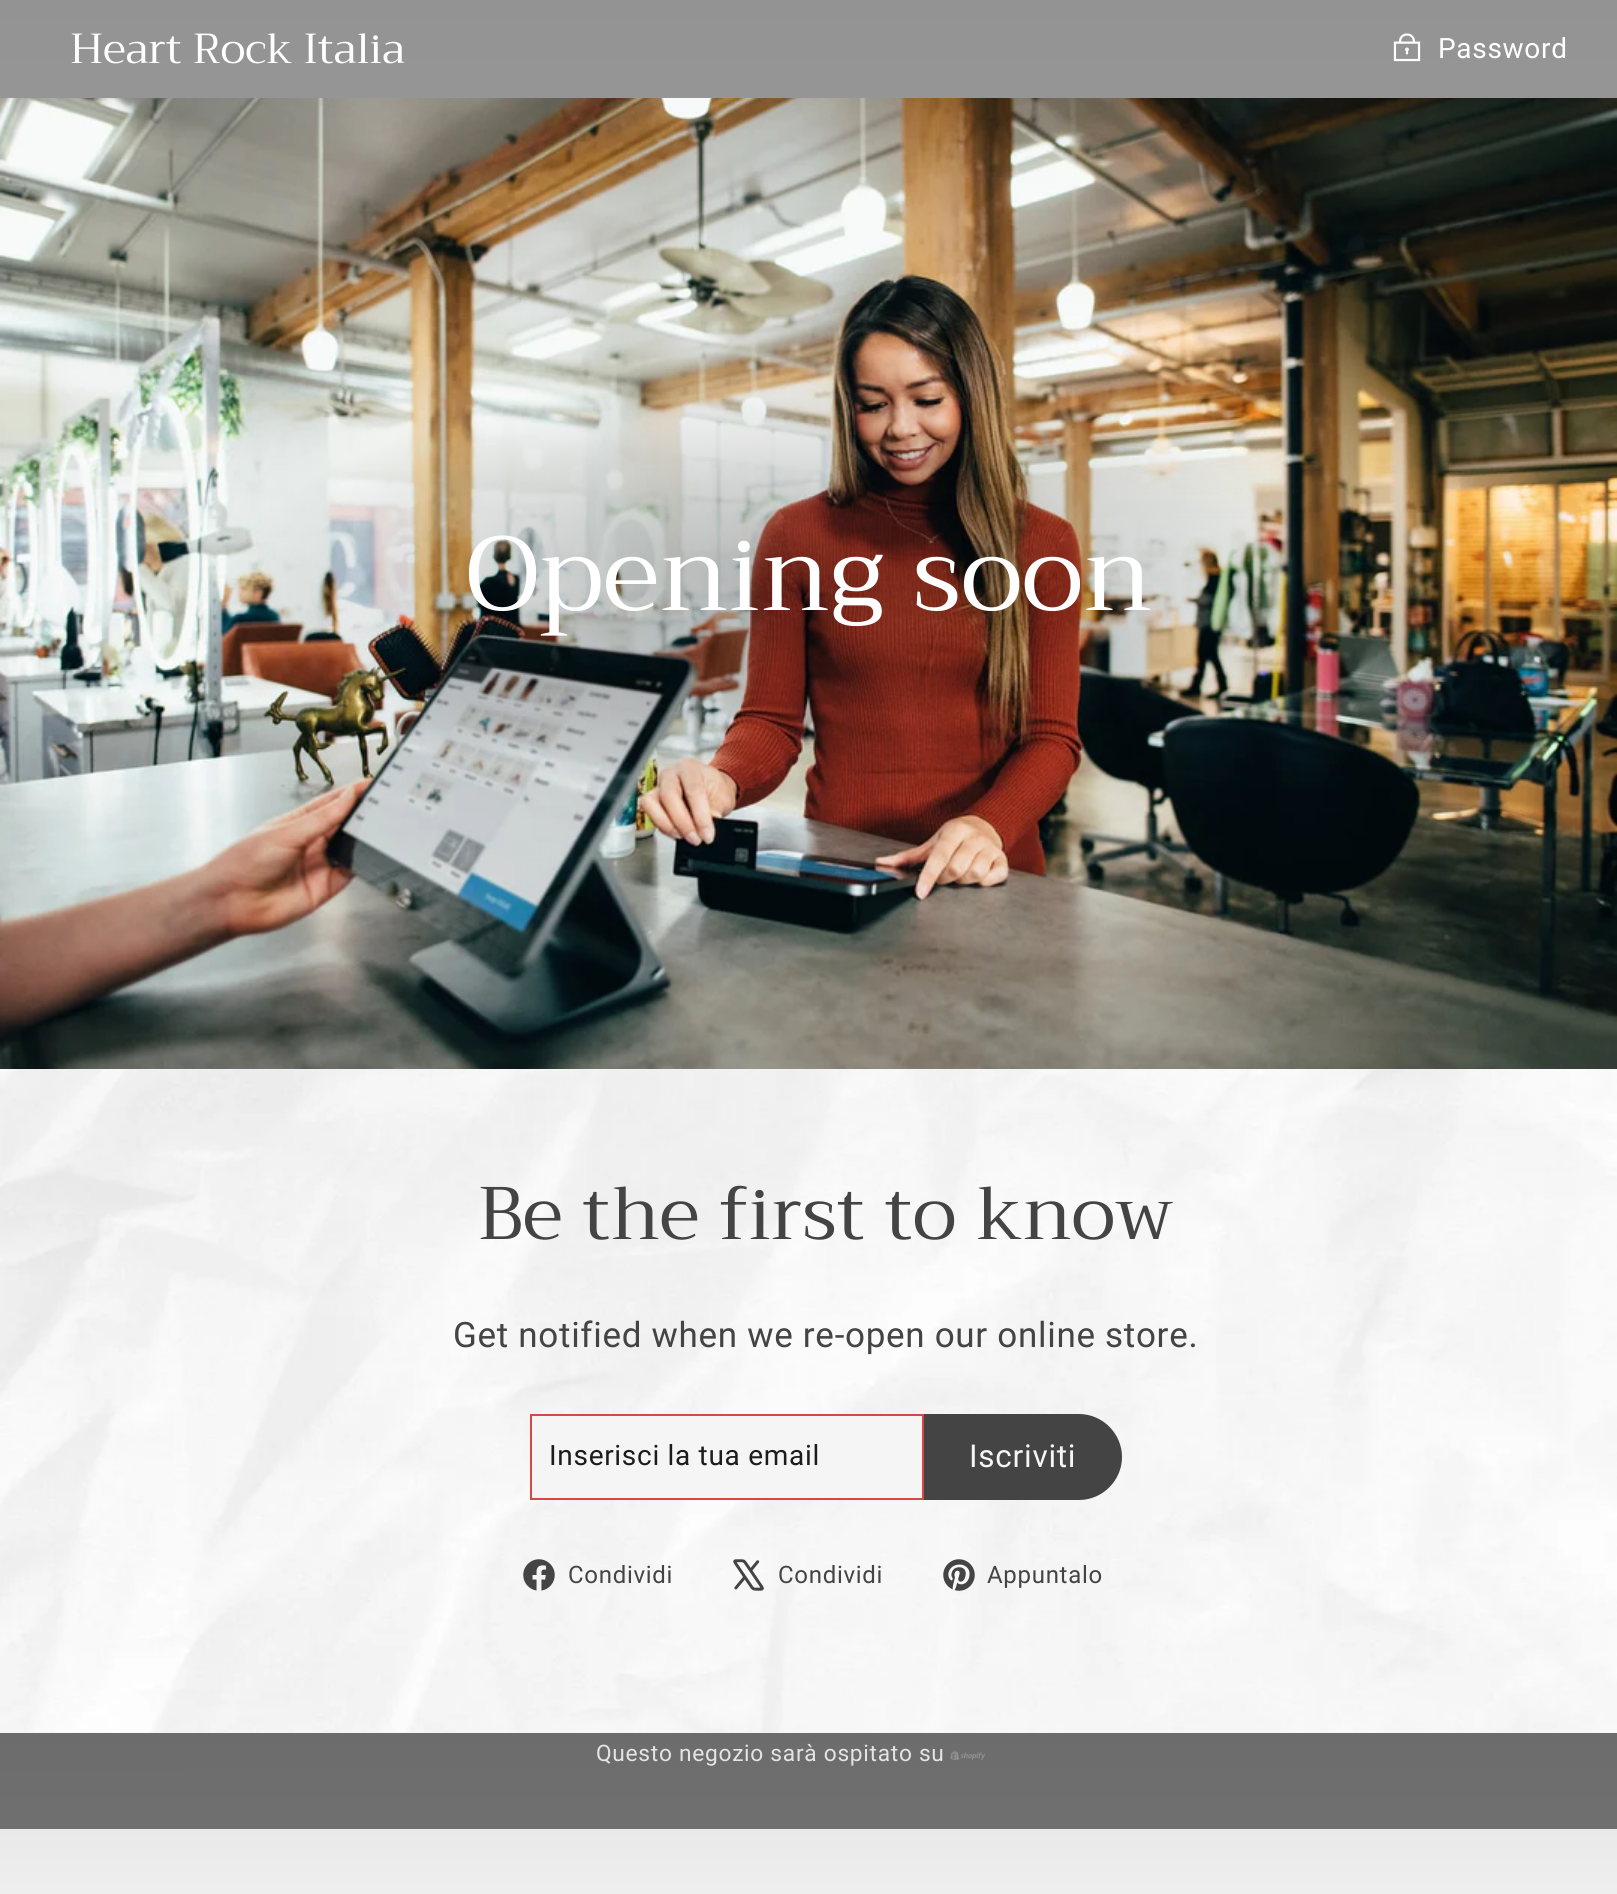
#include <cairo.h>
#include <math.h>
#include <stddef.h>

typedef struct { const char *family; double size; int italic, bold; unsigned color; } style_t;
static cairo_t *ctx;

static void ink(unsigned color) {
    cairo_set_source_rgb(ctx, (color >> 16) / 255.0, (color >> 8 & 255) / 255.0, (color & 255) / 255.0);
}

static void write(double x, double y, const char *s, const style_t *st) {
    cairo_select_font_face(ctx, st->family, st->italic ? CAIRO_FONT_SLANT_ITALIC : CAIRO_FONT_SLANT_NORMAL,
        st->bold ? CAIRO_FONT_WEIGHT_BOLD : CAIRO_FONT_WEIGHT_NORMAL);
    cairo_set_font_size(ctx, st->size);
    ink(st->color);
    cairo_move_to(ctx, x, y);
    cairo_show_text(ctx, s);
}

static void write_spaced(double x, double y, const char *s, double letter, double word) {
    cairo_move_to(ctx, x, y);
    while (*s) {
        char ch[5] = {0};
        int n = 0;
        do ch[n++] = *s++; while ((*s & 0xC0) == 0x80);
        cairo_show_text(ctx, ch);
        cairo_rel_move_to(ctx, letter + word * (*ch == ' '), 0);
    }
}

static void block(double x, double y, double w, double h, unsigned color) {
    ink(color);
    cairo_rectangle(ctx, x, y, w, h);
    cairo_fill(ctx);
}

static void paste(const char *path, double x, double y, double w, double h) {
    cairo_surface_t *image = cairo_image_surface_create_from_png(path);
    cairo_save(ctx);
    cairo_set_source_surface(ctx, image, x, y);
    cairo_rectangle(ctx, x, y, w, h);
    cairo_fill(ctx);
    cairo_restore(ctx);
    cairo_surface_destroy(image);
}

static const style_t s1 = {"Trirong", 42, 0, 0, 0xffffff};
static const style_t s2 = {"Trirong", 105, 0, 0, 0xffffff};
static const style_t s3 = {"Trirong", 74.4, 0, 0, 0x444444};

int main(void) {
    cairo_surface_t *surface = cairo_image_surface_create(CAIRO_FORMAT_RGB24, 1617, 1894);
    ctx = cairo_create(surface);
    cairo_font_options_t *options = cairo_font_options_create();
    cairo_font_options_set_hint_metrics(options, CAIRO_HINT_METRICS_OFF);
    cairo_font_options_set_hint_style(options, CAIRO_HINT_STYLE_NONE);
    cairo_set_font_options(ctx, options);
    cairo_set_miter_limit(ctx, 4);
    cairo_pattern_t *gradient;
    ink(0xf5f5f5);
    cairo_paint(ctx);
    block(0, 1733, 1617, 96, 0x757575);
    cairo_select_font_face(ctx, "Roboto", CAIRO_FONT_SLANT_NORMAL, CAIRO_FONT_WEIGHT_NORMAL);
    cairo_set_font_size(ctx, 22.75);
    ink(0xf5f5f5);
    write_spaced(596, 1761, "Questo negozio sarà ospitato su", 0.7, 0);
    paste("pic7.png", 950, 1750, 35, 10);
    gradient = cairo_pattern_create_linear(808, 0, 809, 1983);
    cairo_pattern_add_color_stop_rgba(gradient, 0, 0, 0, 0, 0.4);
    cairo_pattern_add_color_stop_rgba(gradient, 0.5, 0, 0, 0, 0.3);
    cairo_pattern_add_color_stop_rgba(gradient, 1, 0, 0, 0, 0);
    cairo_set_source(ctx, gradient);
    cairo_pattern_destroy(gradient);
    cairo_rectangle(ctx, 0, 0, 1617, 1894);
    cairo_fill(ctx);
    write(70, 63, "Heart Rock Italia", &s1);
    paste("pic1.png", 1393, 33, 28, 29);
    cairo_select_font_face(ctx, "Roboto", CAIRO_FONT_SLANT_NORMAL, CAIRO_FONT_WEIGHT_NORMAL);
    cairo_set_font_size(ctx, 28);
    write_spaced(1438, 58, "Password", 0.7, 0);
    paste("pic2.png", 0, 98, 1617, 971);
    write(465, 610, "Opening soon", &s2);
    block(0, 1069, 1617, 664, 0xf5f5f5);
    paste("pic3.png", 0, 1069, 1617, 664);
    write(478, 1239, "Be the first to know", &s3);
    cairo_select_font_face(ctx, "Roboto", CAIRO_FONT_SLANT_NORMAL, CAIRO_FONT_WEIGHT_NORMAL);
    cairo_set_font_size(ctx, 35);
    write_spaced(453, 1347, "Get notified when we re-open our online store.", 0.7, 0);
    block(532, 1416, 389, 82, 0xf5f5f5);
    cairo_rectangle(ctx, 531, 1415, 392, 84);
    ink(0xd74648);
    cairo_stroke(ctx);
    cairo_set_font_size(ctx, 28);
    ink(0x1c1c1c);
    write_spaced(549, 1465, "Inserisci la tua email", 0.7, 0);
    ink(0x444444);
    cairo_new_path(ctx);
    cairo_move_to(ctx, 924, 1414);
    cairo_line_to(ctx, 1079, 1414);
    cairo_curve_to(ctx, 1102.5, 1414, 1122, 1433.5, 1122, 1457);
    cairo_curve_to(ctx, 1122, 1480.5, 1102.5, 1500, 1079, 1500);
    cairo_line_to(ctx, 924, 1500);
    cairo_close_path(ctx);
    cairo_fill(ctx);
    cairo_set_font_size(ctx, 31.5);
    ink(0xf5f5f5);
    write_spaced(969, 1467, "Iscriviti", 0.75, 0);
    paste("pic4.png", 523, 1559, 32, 32);
    cairo_set_font_size(ctx, 24);
    ink(0x444444);
    write_spaced(568, 1583, "Condividi", 0.7, 0);
    paste("pic5.png", 733, 1559, 31, 32);
    write_spaced(778, 1583, "Condividi", 0.7, 0);
    paste("pic6.png", 943, 1559, 32, 32);
    write_spaced(987, 1583, "Appuntalo", 0.7, 0);
    cairo_surface_write_to_png(surface, "screenshot.png");
    cairo_font_options_destroy(options);
    cairo_destroy(ctx);
    cairo_surface_destroy(surface);
    return 0;
}
